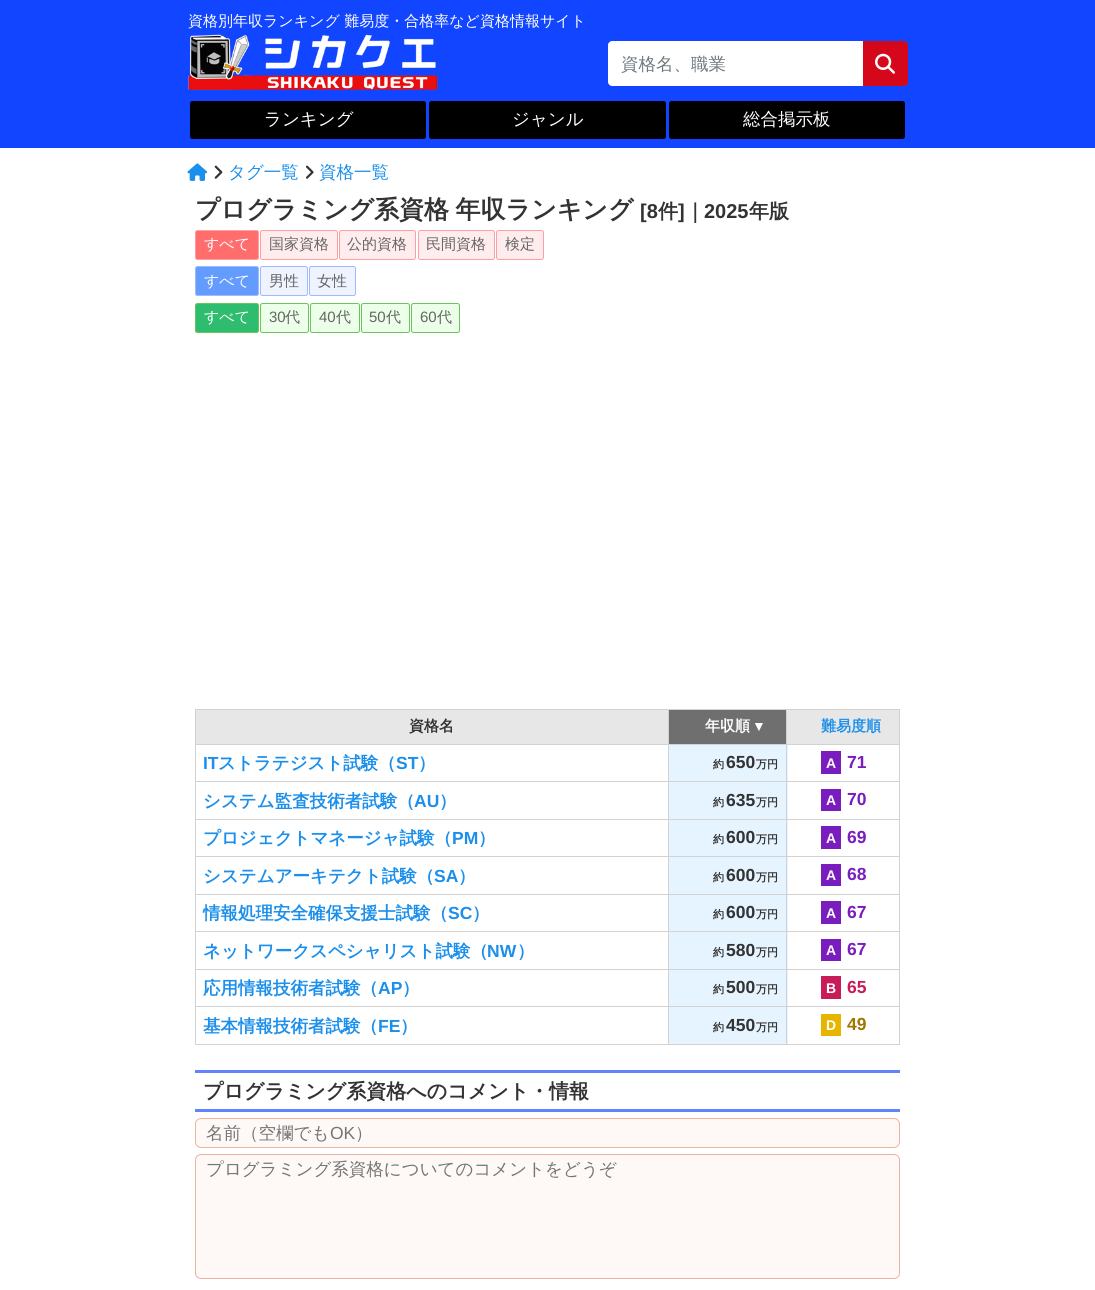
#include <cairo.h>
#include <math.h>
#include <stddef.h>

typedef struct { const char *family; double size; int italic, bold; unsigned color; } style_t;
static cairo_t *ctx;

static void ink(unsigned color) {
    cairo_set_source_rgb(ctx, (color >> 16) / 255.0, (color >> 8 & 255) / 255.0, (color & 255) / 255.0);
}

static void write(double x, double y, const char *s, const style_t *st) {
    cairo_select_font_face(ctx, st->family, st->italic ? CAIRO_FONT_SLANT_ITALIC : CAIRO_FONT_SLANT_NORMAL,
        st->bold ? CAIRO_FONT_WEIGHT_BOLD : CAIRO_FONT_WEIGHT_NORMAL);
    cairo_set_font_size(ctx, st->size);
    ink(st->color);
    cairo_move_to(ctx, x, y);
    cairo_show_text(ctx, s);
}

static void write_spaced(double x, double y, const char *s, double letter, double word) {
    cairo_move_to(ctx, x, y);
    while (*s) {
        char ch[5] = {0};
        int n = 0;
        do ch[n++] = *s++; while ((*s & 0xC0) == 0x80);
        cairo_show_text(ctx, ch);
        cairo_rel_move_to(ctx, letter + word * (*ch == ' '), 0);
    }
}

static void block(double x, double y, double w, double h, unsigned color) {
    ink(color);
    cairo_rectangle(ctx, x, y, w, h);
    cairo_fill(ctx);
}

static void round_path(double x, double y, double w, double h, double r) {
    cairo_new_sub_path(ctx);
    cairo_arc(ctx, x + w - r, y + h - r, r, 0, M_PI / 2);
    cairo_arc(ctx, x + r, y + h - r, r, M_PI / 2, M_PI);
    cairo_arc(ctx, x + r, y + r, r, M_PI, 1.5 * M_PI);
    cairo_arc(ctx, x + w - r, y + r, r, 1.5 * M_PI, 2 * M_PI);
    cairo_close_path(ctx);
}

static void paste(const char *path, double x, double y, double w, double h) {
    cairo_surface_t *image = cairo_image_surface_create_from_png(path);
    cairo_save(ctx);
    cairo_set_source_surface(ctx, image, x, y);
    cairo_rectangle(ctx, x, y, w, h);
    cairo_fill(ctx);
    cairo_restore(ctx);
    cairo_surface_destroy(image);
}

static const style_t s1 = {"WenQuanYi Zen Hei Medium", 15, 0, 0, 0xffffff};
static const style_t s2 = {"WenQuanYi Zen Hei Medium", 17.5, 0, 0, 0x70787d};
static const style_t s3 = {"WenQuanYi Zen Hei Medium", 17.5, 0, 0, 0xffffff};
static const style_t s4 = {"WenQuanYi Zen Hei Medium", 17.5, 0, 0, 0x1b8feb};
static const style_t s5 = {"Liberation Sans", 20, 0, 1, 0x333333};
static const style_t s6 = {"WenQuanYi Zen Hei", 20, 0, 1, 0x333333};
static const style_t s7 = {"WenQuanYi Zen Hei Medium", 15, 0, 0, 0x656565};
static const style_t s8 = {"Liberation Sans", 15, 0, 0, 0x656565};
static const style_t s9 = {"WenQuanYi Zen Hei", 15, 0, 1, 0x333333};
static const style_t s10 = {"WenQuanYi Zen Hei", 15, 0, 1, 0xffffff};
static const style_t s11 = {"Liberation Sans", 14, 0, 1, 0xffffff};
static const style_t s12 = {"WenQuanYi Zen Hei", 15, 0, 1, 0x1b8feb};
static const style_t s13 = {"Liberation Sans", 17.5, 0, 1, 0x1b8feb};
static const style_t s14 = {"WenQuanYi Zen Hei", 17.5, 0, 1, 0x1b8feb};
static const style_t s15 = {"WenQuanYi Zen Hei", 11, 0, 1, 0x333333};
static const style_t s16 = {"Liberation Sans", 17.5, 0, 1, 0x333333};
static const style_t s17 = {"Liberation Sans", 17.5, 0, 1, 0x7a1dbf};
static const style_t s18 = {"Liberation Sans", 17.5, 0, 1, 0xc71b5a};
static const style_t s19 = {"Liberation Sans", 17.5, 0, 1, 0x9f7700};
static const style_t s20 = {"WenQuanYi Zen Hei Medium", 17.5, 0, 0, 0x757575};
static const style_t s21 = {"Liberation Sans", 17.5, 0, 0, 0x757575};

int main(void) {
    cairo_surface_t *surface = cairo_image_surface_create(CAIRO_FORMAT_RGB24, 1095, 1290);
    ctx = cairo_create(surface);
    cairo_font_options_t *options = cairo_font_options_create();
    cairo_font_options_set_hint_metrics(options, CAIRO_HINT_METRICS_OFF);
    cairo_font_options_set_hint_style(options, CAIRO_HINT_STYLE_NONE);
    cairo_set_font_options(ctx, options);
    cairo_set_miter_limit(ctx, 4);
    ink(0xffffff);
    cairo_paint(ctx);
    block(0, 0, 1095, 148, 0x1245ff);
    write(188, 26, "資格別年収ランキング 難易度・合格率など資格情報サイト", &s1);
    paste("pic1.png", 188, 34, 250, 56);
    cairo_new_path(ctx);
    cairo_move_to(ctx, 612, 41);
    cairo_line_to(ctx, 863, 41);
    cairo_line_to(ctx, 863, 86);
    cairo_line_to(ctx, 612, 86);
    cairo_curve_to(ctx, 610, 86, 608, 84, 608, 82);
    cairo_line_to(ctx, 608, 45);
    cairo_curve_to(ctx, 608, 43, 610, 41, 612, 41);
    cairo_close_path(ctx);
    cairo_fill(ctx);
    write(621, 70, "資格名、職業", &s2);
    ink(0xd5071a);
    cairo_new_path(ctx);
    cairo_move_to(ctx, 863, 41);
    cairo_line_to(ctx, 904, 41);
    cairo_curve_to(ctx, 906, 41, 908, 43, 908, 45);
    cairo_line_to(ctx, 908, 82);
    cairo_curve_to(ctx, 908, 84, 906, 86, 904, 86);
    cairo_line_to(ctx, 863, 86);
    cairo_close_path(ctx);
    cairo_fill(ctx);
    paste("pic2.png", 875, 53, 20, 21);
    ink(0x000000);
    round_path(190, 101, 236, 38, 2.5);
    cairo_fill(ctx);
    write(264, 125, "ランキング", &s3);
    ink(0x000000);
    round_path(429, 101, 237, 38, 2.5);
    cairo_fill(ctx);
    write(512, 125, "ジャンル", &s3);
    ink(0x000000);
    round_path(669, 101, 236, 38, 2.5);
    cairo_fill(ctx);
    write(743, 125, "総合掲示板", &s3);
    paste("pic3.png", 187, 163, 21, 18);
    paste("pic4.png", 214, 165, 9, 14);
    write(228, 178, "タグ一覧", &s4);
    paste("pic5.png", 305, 165, 9, 14);
    write(319, 178, "資格一覧", &s4);
    cairo_select_font_face(ctx, "WenQuanYi Zen Hei", CAIRO_FONT_SLANT_NORMAL, CAIRO_FONT_WEIGHT_BOLD);
    cairo_set_font_size(ctx, 25);
    ink(0x333333);
    write_spaced(195, 218, "プログラミング系資格 年収ランキング", 0, -1);
    write(640, 218, "[8", &s5);
    write(658, 218, "件", &s6);
    write(678, 218, "]", &s5);
    write(685, 218, "｜", &s6);
    write(704, 218, "2025", &s5);
    write(749, 218, "年版", &s6);
    ink(0xff6d6d);
    round_path(195.5, 230.5, 63, 29, 2);
    cairo_fill_preserve(ctx);
    ink(0xff9fa4);
    cairo_set_line_width(ctx, 1);
    cairo_stroke(ctx);
    write(204, 249, "すべて", &s1);
    ink(0xffedee);
    round_path(260.5, 230.5, 77, 29, 2);
    cairo_fill_preserve(ctx);
    ink(0xff9fa4);
    cairo_stroke(ctx);
    write(269, 249, "国家資格", &s7);
    ink(0xffedee);
    round_path(339.5, 230.5, 76, 29, 2);
    cairo_fill_preserve(ctx);
    ink(0xff9fa4);
    cairo_stroke(ctx);
    write(347, 249, "公的資格", &s7);
    ink(0xffedee);
    round_path(418.5, 230.5, 76, 29, 2);
    cairo_fill_preserve(ctx);
    ink(0xff9fa4);
    cairo_stroke(ctx);
    write(426, 249, "民間資格", &s7);
    ink(0xffedee);
    round_path(496.5, 230.5, 47, 29, 2);
    cairo_fill_preserve(ctx);
    ink(0xff9fa4);
    cairo_stroke(ctx);
    write(505, 249, "検定", &s7);
    ink(0x649bff);
    round_path(195.5, 266.5, 63, 29, 2);
    cairo_fill_preserve(ctx);
    ink(0x9fb9ff);
    cairo_stroke(ctx);
    write(204, 286, "すべて", &s1);
    ink(0xeff3ff);
    round_path(260.5, 266.5, 47, 29, 2);
    cairo_fill_preserve(ctx);
    ink(0x9fb9ff);
    cairo_stroke(ctx);
    write(269, 286, "男性", &s7);
    ink(0xeff3ff);
    round_path(309.5, 266.5, 46, 29, 2);
    cairo_fill_preserve(ctx);
    ink(0x9fb9ff);
    cairo_stroke(ctx);
    write(317, 286, "女性", &s7);
    ink(0x2ebd6e);
    round_path(195.5, 303.5, 63, 29, 2);
    cairo_fill_preserve(ctx);
    ink(0x69c55a);
    cairo_stroke(ctx);
    write(204, 322, "すべて", &s1);
    ink(0xecffe9);
    round_path(260.5, 303.5, 48, 29, 2);
    cairo_fill_preserve(ctx);
    ink(0x69c55a);
    cairo_stroke(ctx);
    write(269, 322, "30", &s8);
    write(285, 322, "代", &s7);
    ink(0xecffe9);
    round_path(310.5, 303.5, 49, 29, 2);
    cairo_fill_preserve(ctx);
    ink(0x69c55a);
    cairo_stroke(ctx);
    write(319, 322, "40", &s8);
    write(336, 322, "代", &s7);
    ink(0xecffe9);
    round_path(361.5, 303.5, 48, 29, 2);
    cairo_fill_preserve(ctx);
    ink(0x69c55a);
    cairo_stroke(ctx);
    write(369, 322, "50", &s8);
    write(386, 322, "代", &s7);
    ink(0xecffe9);
    round_path(411.5, 303.5, 48, 29, 2);
    cairo_fill_preserve(ctx);
    ink(0x69c55a);
    cairo_stroke(ctx);
    write(420, 322, "60", &s8);
    write(437, 322, "代", &s7);
    block(196, 710, 472, 34, 0xe7e7e7);
    block(786, 709, 114, 1, 0xd2d2d2);
    block(786, 744, 114, 1, 0xd2d2d2);
    block(669, 745, 119, 74, 0xe5f4ff);
    block(786, 781, 114, 1, 0xd2d2d2);
    block(786, 819, 114, 1, 0xd2d2d2);
    block(669, 820, 119, 74, 0xe5f4ff);
    block(786, 856, 114, 1, 0xd2d2d2);
    block(786, 894, 114, 1, 0xd2d2d2);
    block(669, 895, 119, 74, 0xe5f4ff);
    block(786, 931, 114, 1, 0xd2d2d2);
    block(786, 969, 114, 1, 0xd2d2d2);
    block(669, 970, 119, 74, 0xe5f4ff);
    block(786, 1006, 114, 1, 0xd2d2d2);
    block(899, 1006, 1, 39, 0xd2d2d2);
    block(786, 1044, 114, 1, 0xd2d2d2);
    block(786, 1006, 1, 39, 0xd2d2d2);
    block(668, 1006, 120, 1, 0xd2d2d2);
    block(786, 969, 1, 39, 0xd2d2d2);
    block(668, 969, 120, 1, 0xd2d2d2);
    block(786, 931, 1, 39, 0xd2d2d2);
    block(668, 931, 120, 1, 0xd2d2d2);
    block(786, 894, 1, 39, 0xd2d2d2);
    block(668, 894, 120, 1, 0xd2d2d2);
    block(786, 856, 1, 39, 0xd2d2d2);
    block(668, 856, 120, 1, 0xd2d2d2);
    block(786, 819, 1, 39, 0xd2d2d2);
    block(668, 819, 120, 1, 0xd2d2d2);
    block(786, 781, 1, 39, 0xd2d2d2);
    block(668, 781, 120, 1, 0xd2d2d2);
    block(786, 744, 1, 39, 0xd2d2d2);
    block(668, 744, 120, 1, 0xd2d2d2);
    block(786, 709, 1, 36, 0xd2d2d2);
    block(668, 709, 120, 1, 0xd2d2d2);
    block(668, 1044, 120, 1, 0xd2d2d2);
    block(668, 1006, 1, 39, 0xd2d2d2);
    block(195, 1006, 474, 1, 0xd2d2d2);
    block(668, 969, 1, 39, 0xd2d2d2);
    block(195, 969, 474, 1, 0xd2d2d2);
    block(668, 931, 1, 39, 0xd2d2d2);
    block(195, 931, 474, 1, 0xd2d2d2);
    block(668, 894, 1, 39, 0xd2d2d2);
    block(195, 894, 474, 1, 0xd2d2d2);
    block(668, 856, 1, 39, 0xd2d2d2);
    block(195, 856, 474, 1, 0xd2d2d2);
    block(668, 819, 1, 39, 0xd2d2d2);
    block(195, 819, 474, 1, 0xd2d2d2);
    block(668, 781, 1, 39, 0xd2d2d2);
    block(195, 781, 474, 1, 0xd2d2d2);
    block(668, 744, 1, 39, 0xd2d2d2);
    block(195, 744, 474, 1, 0xd2d2d2);
    block(668, 709, 1, 36, 0xd2d2d2);
    block(195, 709, 474, 1, 0xd2d2d2);
    block(195, 1044, 474, 1, 0xd2d2d2);
    block(195, 1006, 1, 39, 0xd2d2d2);
    block(195, 969, 1, 39, 0xd2d2d2);
    block(195, 931, 1, 39, 0xd2d2d2);
    block(195, 894, 1, 39, 0xd2d2d2);
    block(195, 856, 1, 39, 0xd2d2d2);
    block(195, 819, 1, 39, 0xd2d2d2);
    block(195, 781, 1, 39, 0xd2d2d2);
    block(195, 744, 1, 39, 0xd2d2d2);
    block(195, 709, 1, 36, 0xd2d2d2);
    write(409, 731, "資格名", &s9);
    block(787, 710, 112, 34, 0xe7e7e7);
    block(669, 710, 117, 34, 0x6f6f6f);
    write(705, 731, "年収順", &s10);
    write(752, 731, "▼", &s11);
    block(899, 969, 1, 39, 0xd2d2d2);
    block(899, 931, 1, 39, 0xd2d2d2);
    block(899, 894, 1, 39, 0xd2d2d2);
    block(899, 856, 1, 39, 0xd2d2d2);
    block(899, 819, 1, 39, 0xd2d2d2);
    block(899, 781, 1, 39, 0xd2d2d2);
    block(899, 744, 1, 39, 0xd2d2d2);
    block(899, 709, 1, 36, 0xd2d2d2);
    write(821, 731, "難易度順", &s12);
    write(203, 769, "IT", &s13);
    write(218, 769, "ストラテジスト試験（", &s14);
    write(396, 769, "ST", &s13);
    write(418, 769, "）", &s14);
    write(713, 768, "約", &s15);
    write(726, 768, "650", &s16);
    write(756, 768, "万円", &s15);
    block(821, 751, 20, 23, 0x7a1dbf);
    write(826, 768, "A", &s11);
    write(847, 768, "71", &s17);
    write(203, 807, "システム監査技術者試験（", &s14);
    write(414, 807, "AU", &s13);
    write(439, 807, "）", &s14);
    write(713, 806, "約", &s15);
    write(726, 806, "635", &s16);
    write(756, 806, "万円", &s15);
    block(821, 789, 20, 22, 0x7a1dbf);
    write(826, 805, "A", &s11);
    write(847, 805, "70", &s17);
    write(203, 844, "プロジェクトマネージャ試験（", &s14);
    write(452, 844, "PM", &s13);
    write(478, 844, "）", &s14);
    write(713, 843, "約", &s15);
    write(726, 843, "600", &s16);
    write(756, 843, "万円", &s15);
    block(821, 826, 20, 23, 0x7a1dbf);
    write(826, 843, "A", &s11);
    write(847, 843, "69", &s17);
    write(203, 882, "システムアーキテクト試験（", &s14);
    write(434, 882, "SA", &s13);
    write(458, 882, "）", &s14);
    write(713, 881, "約", &s15);
    write(726, 881, "600", &s16);
    write(756, 881, "万円", &s15);
    block(821, 864, 20, 22, 0x7a1dbf);
    write(826, 880, "A", &s11);
    write(847, 880, "68", &s17);
    write(203, 919, "情報処理安全確保支援士試験（", &s14);
    write(448, 919, "SC", &s13);
    write(472, 919, "）", &s14);
    write(713, 918, "約", &s15);
    write(726, 918, "600", &s16);
    write(756, 918, "万円", &s15);
    block(821, 901, 20, 23, 0x7a1dbf);
    write(826, 918, "A", &s11);
    write(847, 918, "67", &s17);
    write(203, 957, "ネットワークスペシャリスト試験（", &s14);
    write(487, 957, "NW", &s13);
    write(517, 957, "）", &s14);
    write(713, 956, "約", &s15);
    write(726, 956, "580", &s16);
    write(756, 956, "万円", &s15);
    block(821, 939, 20, 22, 0x7a1dbf);
    write(826, 955, "A", &s11);
    write(847, 955, "67", &s17);
    write(203, 994, "応用情報技術者試験（", &s14);
    write(378, 994, "AP", &s13);
    write(402, 994, "）", &s14);
    write(713, 993, "約", &s15);
    write(726, 993, "500", &s16);
    write(756, 993, "万円", &s15);
    block(821, 976, 20, 23, 0xc71b5a);
    write(826, 993, "B", &s11);
    write(847, 993, "65", &s18);
    write(203, 1032, "基本情報技術者試験（", &s14);
    write(378, 1032, "FE", &s13);
    write(400, 1032, "）", &s14);
    write(713, 1031, "約", &s15);
    write(726, 1031, "450", &s16);
    write(756, 1031, "万円", &s15);
    block(821, 1014, 20, 22, 0xe7b500);
    write(826, 1030, "D", &s11);
    write(847, 1030, "49", &s19);
    block(195, 1070, 705, 3, 0x6183ff);
    block(195, 1109, 705, 3, 0x6183ff);
    write(203, 1098, "プログラミング系資格へのコメント・情報", &s6);
    ink(0xfef8f7);
    round_path(195.5, 1118.5, 704, 29, 5.5);
    cairo_fill_preserve(ctx);
    ink(0xf1b1a1);
    cairo_stroke(ctx);
    write(206, 1139, "名前（空欄でも", &s20);
    write(330, 1139, "OK", &s21);
    write(355, 1139, "）", &s20);
    ink(0xfef8f7);
    round_path(195.5, 1154.5, 704, 124, 5.5);
    cairo_fill_preserve(ctx);
    ink(0xf1b1a1);
    cairo_stroke(ctx);
    write(206, 1175, "プログラミング系資格についてのコメントをどうぞ", &s20);
    cairo_surface_write_to_png(surface, "screenshot.png");
    cairo_font_options_destroy(options);
    cairo_destroy(ctx);
    cairo_surface_destroy(surface);
    return 0;
}
